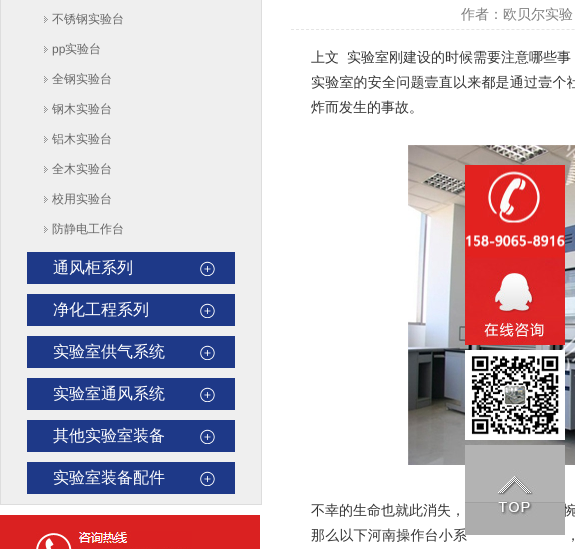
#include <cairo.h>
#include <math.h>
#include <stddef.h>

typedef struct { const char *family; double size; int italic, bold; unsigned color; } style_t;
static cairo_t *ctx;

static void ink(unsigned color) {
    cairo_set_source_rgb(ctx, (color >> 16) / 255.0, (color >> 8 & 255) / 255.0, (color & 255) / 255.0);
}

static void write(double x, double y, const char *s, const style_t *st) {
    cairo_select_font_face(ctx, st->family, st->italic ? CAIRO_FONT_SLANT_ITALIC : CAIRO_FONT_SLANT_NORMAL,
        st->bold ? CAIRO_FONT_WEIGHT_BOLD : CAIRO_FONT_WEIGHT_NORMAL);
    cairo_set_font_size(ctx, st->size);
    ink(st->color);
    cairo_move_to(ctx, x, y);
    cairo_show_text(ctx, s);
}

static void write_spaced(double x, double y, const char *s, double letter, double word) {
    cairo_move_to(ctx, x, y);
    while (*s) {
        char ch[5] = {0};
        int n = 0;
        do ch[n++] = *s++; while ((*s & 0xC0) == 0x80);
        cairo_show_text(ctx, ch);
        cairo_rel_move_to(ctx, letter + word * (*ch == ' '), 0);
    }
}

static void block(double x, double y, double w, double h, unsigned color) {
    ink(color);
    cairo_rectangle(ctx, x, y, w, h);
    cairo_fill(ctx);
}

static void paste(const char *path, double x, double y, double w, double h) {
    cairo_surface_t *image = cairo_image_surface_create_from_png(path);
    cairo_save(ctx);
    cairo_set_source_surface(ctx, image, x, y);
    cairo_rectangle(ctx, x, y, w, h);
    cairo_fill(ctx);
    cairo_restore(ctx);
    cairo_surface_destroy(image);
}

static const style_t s1 = {"WenQuanYi Zen Hei Medium", 12, 0, 0, 0x666666};
static const style_t s2 = {"Liberation Sans", 12, 0, 0, 0x666666};
static const style_t s3 = {"WenQuanYi Zen Hei Medium", 16, 0, 0, 0xffffff};
static const style_t s4 = {"WenQuanYi Zen Hei Medium", 14, 0, 0, 0x7e7e7e};
static const style_t s5 = {"WenQuanYi Zen Hei Medium", 14, 0, 0, 0x333333};

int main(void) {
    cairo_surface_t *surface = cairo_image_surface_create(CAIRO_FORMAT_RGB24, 575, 549);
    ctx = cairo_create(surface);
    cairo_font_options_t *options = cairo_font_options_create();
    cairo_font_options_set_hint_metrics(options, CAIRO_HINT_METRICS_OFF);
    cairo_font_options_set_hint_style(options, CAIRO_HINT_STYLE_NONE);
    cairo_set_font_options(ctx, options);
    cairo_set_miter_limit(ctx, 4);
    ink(0xffffff);
    cairo_paint(ctx);
    ink(0xefefef);
    cairo_rectangle(ctx, 0.5, -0.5, 261, 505);
    cairo_fill_preserve(ctx);
    ink(0xdddddd);
    cairo_set_line_width(ctx, 1);
    cairo_stroke(ctx);
    paste("pic1.png", 44, 16, 4, 7);
    write(52, 23, "不锈钢实验台", &s1);
    paste("pic1.png", 44, 46, 4, 7);
    write(52, 53, "pp", &s2);
    write(65, 53, "实验台", &s1);
    paste("pic1.png", 44, 76, 4, 7);
    write(52, 83, "全钢实验台", &s1);
    paste("pic1.png", 44, 106, 4, 7);
    write(52, 113, "钢木实验台", &s1);
    paste("pic1.png", 44, 136, 4, 7);
    write(52, 143, "铝木实验台", &s1);
    paste("pic1.png", 44, 166, 4, 7);
    write(52, 173, "全木实验台", &s1);
    paste("pic1.png", 44, 196, 4, 7);
    write(52, 203, "校用实验台", &s1);
    paste("pic1.png", 44, 226, 4, 7);
    write(52, 233, "防静电工作台", &s1);
    block(27, 252, 208, 32, 0x1e3988);
    paste("pic2.png", 200, 261, 15, 15);
    write(53, 273, "通风柜系列", &s3);
    block(27, 294, 208, 32, 0x1e3988);
    paste("pic2.png", 200, 303, 15, 15);
    write(53, 315, "净化工程系列", &s3);
    block(27, 336, 208, 32, 0x1e3988);
    paste("pic2.png", 200, 345, 15, 15);
    write(53, 357, "实验室供气系统", &s3);
    block(27, 378, 208, 32, 0x1e3988);
    paste("pic2.png", 200, 387, 15, 15);
    write(53, 399, "实验室通风系统", &s3);
    block(27, 420, 208, 32, 0x1e3988);
    paste("pic2.png", 200, 429, 15, 15);
    write(53, 441, "其他实验室装备", &s3);
    block(27, 462, 208, 32, 0x1e3988);
    paste("pic2.png", 200, 471, 15, 15);
    write(53, 483, "实验室装备配件", &s3);
    block(0, 515, 260, 34, 0xda2121);
    paste("pic3.png", 36, 531, 156, 18);
    cairo_new_path(ctx);
    cairo_move_to(ctx, 291, 29.5);
    cairo_line_to(ctx, 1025, 29.5);
    ink(0xe5e5e5);
    cairo_set_dash(ctx, (double[]){3, 2.01}, 2, 0);
    cairo_stroke(ctx);
    write(461, 19, "作者：欧贝尔实验", &s4);
    write(311, 62, "上文", &s5);
    write(347, 62, "实验室刚建设的时候需要注意哪些事", &s5);
    write_spaced(311, 87, "实验室的安全问题壹直以来都是通过壹个社", 0.2, 0);
    write(311, 112, "炸而发生的事故。", &s5);
    paste("pic4.png", 408, 145, 167, 320);
    write(311, 515, "不幸的生命也就此消失，", &s5);
    write(563, 515, "惋", &s5);
    write_spaced(311, 540, "那么以下河南操作台小系", 0.2, 0);
    write_spaced(566, 540, "，", 0.2, 0);
    paste("pic5.png", 465, 165, 100, 90);
    paste("pic6.png", 465, 255, 100, 90);
    paste("pic7.png", 465, 350, 100, 90);
    paste("pic8.png", 465, 445, 100, 90);
    cairo_surface_write_to_png(surface, "screenshot.png");
    cairo_font_options_destroy(options);
    cairo_destroy(ctx);
    cairo_surface_destroy(surface);
    return 0;
}
